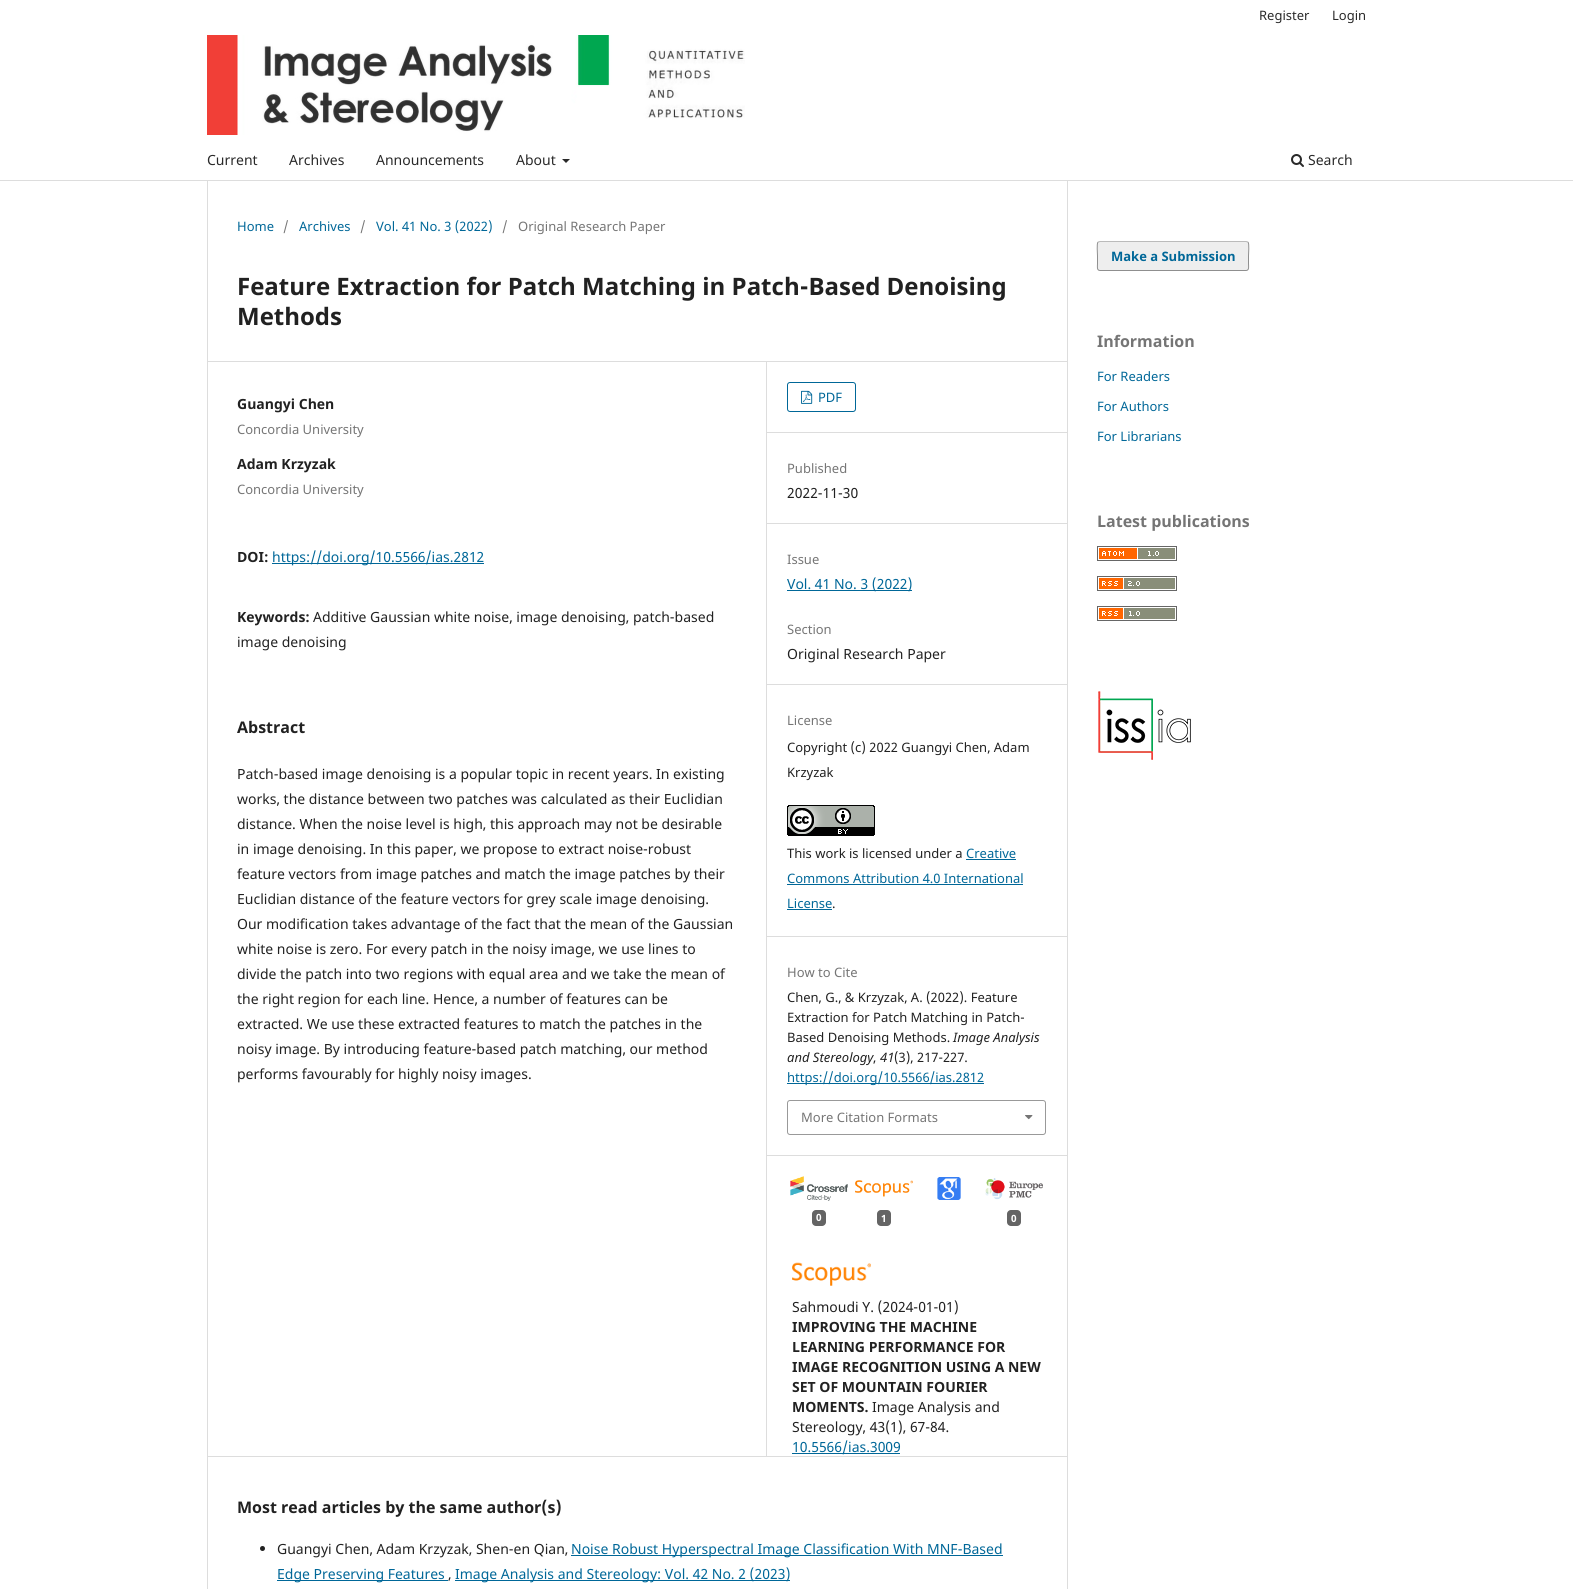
#include <cairo.h>
#include <math.h>
#include <stddef.h>

typedef struct { const char *family; double size; int italic, bold; unsigned color; } style_t;
static cairo_t *ctx;

static void ink(unsigned color) {
    cairo_set_source_rgb(ctx, (color >> 16) / 255.0, (color >> 8 & 255) / 255.0, (color & 255) / 255.0);
}

static void write(double x, double y, const char *s, const style_t *st) {
    cairo_select_font_face(ctx, st->family, st->italic ? CAIRO_FONT_SLANT_ITALIC : CAIRO_FONT_SLANT_NORMAL,
        st->bold ? CAIRO_FONT_WEIGHT_BOLD : CAIRO_FONT_WEIGHT_NORMAL);
    cairo_set_font_size(ctx, st->size);
    ink(st->color);
    cairo_move_to(ctx, x, y);
    cairo_show_text(ctx, s);
}

static void block(double x, double y, double w, double h, unsigned color) {
    ink(color);
    cairo_rectangle(ctx, x, y, w, h);
    cairo_fill(ctx);
}

static void round_path(double x, double y, double w, double h, double r) {
    cairo_new_sub_path(ctx);
    cairo_arc(ctx, x + w - r, y + h - r, r, 0, M_PI / 2);
    cairo_arc(ctx, x + r, y + h - r, r, M_PI / 2, M_PI);
    cairo_arc(ctx, x + r, y + r, r, M_PI, 1.5 * M_PI);
    cairo_arc(ctx, x + w - r, y + r, r, 1.5 * M_PI, 2 * M_PI);
    cairo_close_path(ctx);
}

static void paste(const char *path, double x, double y, double w, double h) {
    cairo_surface_t *image = cairo_image_surface_create_from_png(path);
    cairo_save(ctx);
    cairo_set_source_surface(ctx, image, x, y);
    cairo_rectangle(ctx, x, y, w, h);
    cairo_fill(ctx);
    cairo_restore(ctx);
    cairo_surface_destroy(image);
}

static const style_t s1 = {"Noto Sans", 13, 0, 0, 0x292929};
static const style_t s2 = {"Noto Sans", 14, 0, 0, 0x292929};
static const style_t s3 = {"Noto Sans", 13, 0, 0, 0x006798};
static const style_t s4 = {"Noto Sans", 13, 0, 0, 0x757575};
static const style_t s5 = {"Noto Sans", 24, 0, 1, 0x212121};
static const style_t s6 = {"Noto Sans", 14, 0, 1, 0x212121};
static const style_t s7 = {"Noto Sans", 14, 0, 0, 0x006798};
static const style_t s8 = {"Noto Sans", 14, 0, 0, 0x212121};
static const style_t s9 = {"Noto Sans", 16, 0, 1, 0x212121};
static const style_t s10 = {"Noto Sans", 13, 0, 0, 0x212121};
static const style_t s11 = {"Noto Sans", 13, 1, 0, 0x212121};
static const style_t s12 = {"Noto Sans", 10, 0, 1, 0xffffff};
static const style_t s13 = {"Noto Sans", 13, 0, 1, 0x006798};
static const style_t s14 = {"Noto Sans", 16, 0, 1, 0x757575};

int main(void) {
    cairo_surface_t *surface = cairo_image_surface_create(CAIRO_FORMAT_RGB24, 1573, 1589);
    ctx = cairo_create(surface);
    cairo_font_options_t *options = cairo_font_options_create();
    cairo_font_options_set_hint_metrics(options, CAIRO_HINT_METRICS_OFF);
    cairo_font_options_set_hint_style(options, CAIRO_HINT_STYLE_NONE);
    cairo_set_font_options(ctx, options);
    cairo_set_miter_limit(ctx, 4);
    ink(0xffffff);
    cairo_paint(ctx);
    block(0, 180, 1573, 1, 0xdddddd);
    write(1259, 20, "Register", &s1);
    write(1332, 20, "Login", &s1);
    write(207, 165, "Current", &s2);
    write(289, 165, "Archives", &s2);
    write(376, 165, "Announcements", &s2);
    write(516, 165, "About", &s2);
    cairo_new_path(ctx);
    cairo_move_to(ctx, 562, 159);
    cairo_line_to(ctx, 570, 159);
    cairo_line_to(ctx, 566, 163);
    cairo_close_path(ctx);
    cairo_fill(ctx);
    paste("pic1.png", 1291, 154, 13, 13);
    write(1308, 165, "Search", &s2);
    paste("pic2.png", 207, 35, 538, 100);
    block(207, 361, 860, 1, 0xdddddd);
    block(207, 1456, 860, 1, 0xdddddd);
    block(207, 181, 1, 1408, 0xdddddd);
    write(237, 231, "Home", &s3);
    write(283, 231, "/", &s4);
    write(299, 231, "Archives", &s3);
    write(360, 231, "/", &s4);
    write(376, 231, "Vol. 41 No. 3 (2022)", &s3);
    write(502, 231, "/", &s4);
    write(518, 231, "Original Research Paper", &s4);
    write(237, 295, "Feature Extraction for Patch Matching in Patch-Based Denoising", &s5);
    write(237, 325, "Methods", &s5);
    write(237, 409, "Guangyi Chen", &s6);
    write(237, 434, "Concordia University", &s4);
    write(237, 469, "Adam Krzyzak", &s6);
    write(237, 494, "Concordia University", &s4);
    write(237, 562, "DOI:", &s6);
    block(272, 563, 212, 1, 0x006798);
    write(272, 562, "https://doi.org/10.5566/ias.2812", &s7);
    write(237, 622, "Keywords:", &s6);
    write(313, 622, "Additive Gaussian white noise, image denoising, patch-based", &s8);
    write(237, 647, "image denoising", &s8);
    write(237, 733, "Abstract", &s9);
    write(237, 779, "Patch-based image denoising is a popular topic in recent years. In existing", &s8);
    write(237, 804, "works, the distance between two patches was calculated as their Euclidian", &s8);
    write(237, 829, "distance. When the noise level is high, this approach may not be desirable", &s8);
    write(237, 854, "in image denoising. In this paper, we propose to extract noise-robust", &s8);
    write(237, 879, "feature vectors from image patches and match the image patches by their", &s8);
    write(237, 904, "Euclidian distance of the feature vectors for grey scale image denoising.", &s8);
    write(237, 929, "Our modification takes advantage of the fact that the mean of the Gaussian", &s8);
    write(237, 954, "white noise is zero. For every patch in the noisy image, we use lines to", &s8);
    write(237, 979, "divide the patch into two regions with equal area and we take the mean of", &s8);
    write(237, 1004, "the right region for each line. Hence, a number of features can be", &s8);
    write(237, 1029, "extracted. We use these extracted features to match the patches in the", &s8);
    write(237, 1054, "noisy image. By introducing feature-based patch matching, our method", &s8);
    write(237, 1079, "performs favourably for highly noisy images.", &s8);
    block(766, 362, 1, 1094, 0xdddddd);
    block(767, 432, 300, 1, 0xdddddd);
    round_path(787.5, 382.5, 68, 29, 2.5);
    ink(0x006798);
    cairo_set_line_width(ctx, 1);
    cairo_stroke(ctx);
    paste("pic3.png", 801, 390, 12, 14);
    write(818, 402, "PDF", &s3);
    block(767, 523, 300, 1, 0xdddddd);
    write(787, 473, "Published", &s4);
    write(787, 498, "2022-11-30", &s8);
    block(767, 684, 300, 1, 0xdddddd);
    write(787, 564, "Issue", &s4);
    block(787, 590, 125, 1, 0x006798);
    write(787, 589, "Vol. 41 No. 3 (2022)", &s7);
    write(787, 634, "Section", &s4);
    write(787, 659, "Original Research Paper", &s8);
    block(767, 936, 300, 1, 0xdddddd);
    write(787, 725, "License", &s4);
    write(787, 752, "Copyright (c) 2022 Guangyi Chen, Adam", &s10);
    write(787, 777, "Krzyzak", &s10);
    paste("pic4.png", 787, 805, 88, 31);
    write(787, 858, "This work is licensed under a", &s10);
    write(966, 858, "Creative", &s3);
    block(966, 859, 50, 1, 0x006798);
    write(787, 883, "Commons Attribution 4.0 International", &s3);
    block(787, 884, 236, 1, 0x006798);
    write(787, 908, "License", &s3);
    block(787, 909, 45, 1, 0x006798);
    write(832, 908, ".", &s10);
    block(767, 1155, 300, 1, 0xdddddd);
    write(787, 977, "How to Cite", &s4);
    write(787, 1002, "Chen, G., & Krzyzak, A. (2022). Feature", &s10);
    write(787, 1022, "Extraction for Patch Matching in Patch-", &s10);
    write(787, 1042, "Based Denoising Methods.", &s10);
    write(953, 1042, "Image Analysis", &s11);
    write(787, 1062, "and Stereology", &s11);
    write(873, 1062, ",", &s10);
    write(880, 1062, "41", &s11);
    write(894, 1062, "(3), 217-227.", &s10);
    block(787, 1083, 197, 1, 0x006798);
    write(787, 1082, "https://doi.org/10.5566/ias.2812", &s3);
    round_path(787.5, 1100.5, 258, 34, 2.5);
    ink(0x999999);
    cairo_stroke(ctx);
    write(801, 1122, "More Citation Formats", &s4);
    paste("pic5.png", 1025, 1115, 8, 5);
    paste("pic6.png", 937, 1177, 24, 23);
    paste("pic7.png", 790, 1176, 58, 25);
    ink(0x646464);
    round_path(812, 1210, 14, 16, 4);
    cairo_fill(ctx);
    write(816, 1221, "0", &s12);
    paste("pic8.png", 855, 1180, 58, 17);
    ink(0x646464);
    round_path(877, 1210, 14, 16, 4);
    cairo_fill(ctx);
    write(881, 1222, "1", &s12);
    paste("pic9.png", 985, 1178, 58, 22);
    ink(0x646464);
    round_path(1007, 1210, 14, 16, 4);
    cairo_fill(ctx);
    write(1011, 1222, "0", &s12);
    paste("pic10.png", 792, 1262, 79, 24);
    write(792, 1312, "Sahmoudi Y. (2024-01-01)", &s8);
    write(792, 1332, "IMPROVING THE MACHINE", &s6);
    write(792, 1352, "LEARNING PERFORMANCE FOR", &s6);
    write(792, 1372, "IMAGE RECOGNITION USING A NEW", &s6);
    write(792, 1392, "SET OF MOUNTAIN FOURIER", &s6);
    write(792, 1412, "MOMENTS.", &s6);
    write(872, 1412, "Image Analysis and", &s8);
    write(792, 1432, "Stereology, 43(1), 67-84.", &s8);
    block(792, 1453, 108, 1, 0x006798);
    write(792, 1452, "10.5566/ias.3009", &s7);
    write(237, 1513, "Most read articles by the same author(s)", &s9);
    cairo_new_path(ctx);
    cairo_arc(ctx, 262.5, 1548.5, 2.5, 0, 2 * M_PI);
    cairo_fill(ctx);
    write(277, 1554, "Guangyi Chen, Adam Krzyzak, Shen-en Qian,", &s8);
    block(571, 1555, 432, 1, 0x006798);
    write(571, 1554, "Noise Robust Hyperspectral Image Classification With MNF-Based", &s7);
    block(277, 1580, 171, 1, 0x006798);
    write(277, 1579, "Edge Preserving Features", &s7);
    write(448, 1579, ",", &s8);
    block(455, 1580, 335, 1, 0x006798);
    write(455, 1579, "Image Analysis and Stereology: Vol. 42 No. 2 (2023)", &s7);
    block(1067, 181, 1, 1408, 0xdddddd);
    ink(0xeeeeee);
    round_path(1097, 241, 152, 30, 3);
    cairo_fill(ctx);
    cairo_new_path(ctx);
    cairo_move_to(ctx, 1098, 242);
    cairo_line_to(ctx, 1100, 241.5);
    cairo_line_to(ctx, 1246, 241.5);
    cairo_line_to(ctx, 1248, 242);
    ink(0xbbbbbb);
    cairo_stroke(ctx);
    cairo_new_path(ctx);
    cairo_move_to(ctx, 1248, 242);
    cairo_curve_to(ctx, 1249.5, 244, 1248.5, 253.5, 1248.5, 256);
    cairo_line_to(ctx, 1248.5, 264);
    cairo_curve_to(ctx, 1248.5, 266, 1249.5, 270.5, 1246, 270.5);
    cairo_line_to(ctx, 1100, 270.5);
    cairo_curve_to(ctx, 1096.5, 270.5, 1097.5, 266, 1097.5, 264);
    cairo_line_to(ctx, 1097.5, 256);
    cairo_curve_to(ctx, 1097.5, 253.5, 1096.5, 244, 1098, 242);
    cairo_set_source_rgba(ctx, 0, 0, 0, 0.4);
    cairo_stroke(ctx);
    write(1111, 261, "Make a Submission", &s13);
    write(1097, 347, "Information", &s14);
    write(1097, 381, "For Readers", &s3);
    write(1097, 411, "For Authors", &s3);
    write(1097, 441, "For Librarians", &s3);
    write(1097, 527, "Latest publications", &s14);
    paste("pic11.png", 1097, 546, 80, 15);
    paste("pic12.png", 1097, 576, 80, 15);
    paste("pic13.png", 1097, 606, 80, 15);
    paste("pic14.png", 1098, 691, 93, 69);
    cairo_surface_write_to_png(surface, "screenshot.png");
    cairo_font_options_destroy(options);
    cairo_destroy(ctx);
    cairo_surface_destroy(surface);
    return 0;
}
